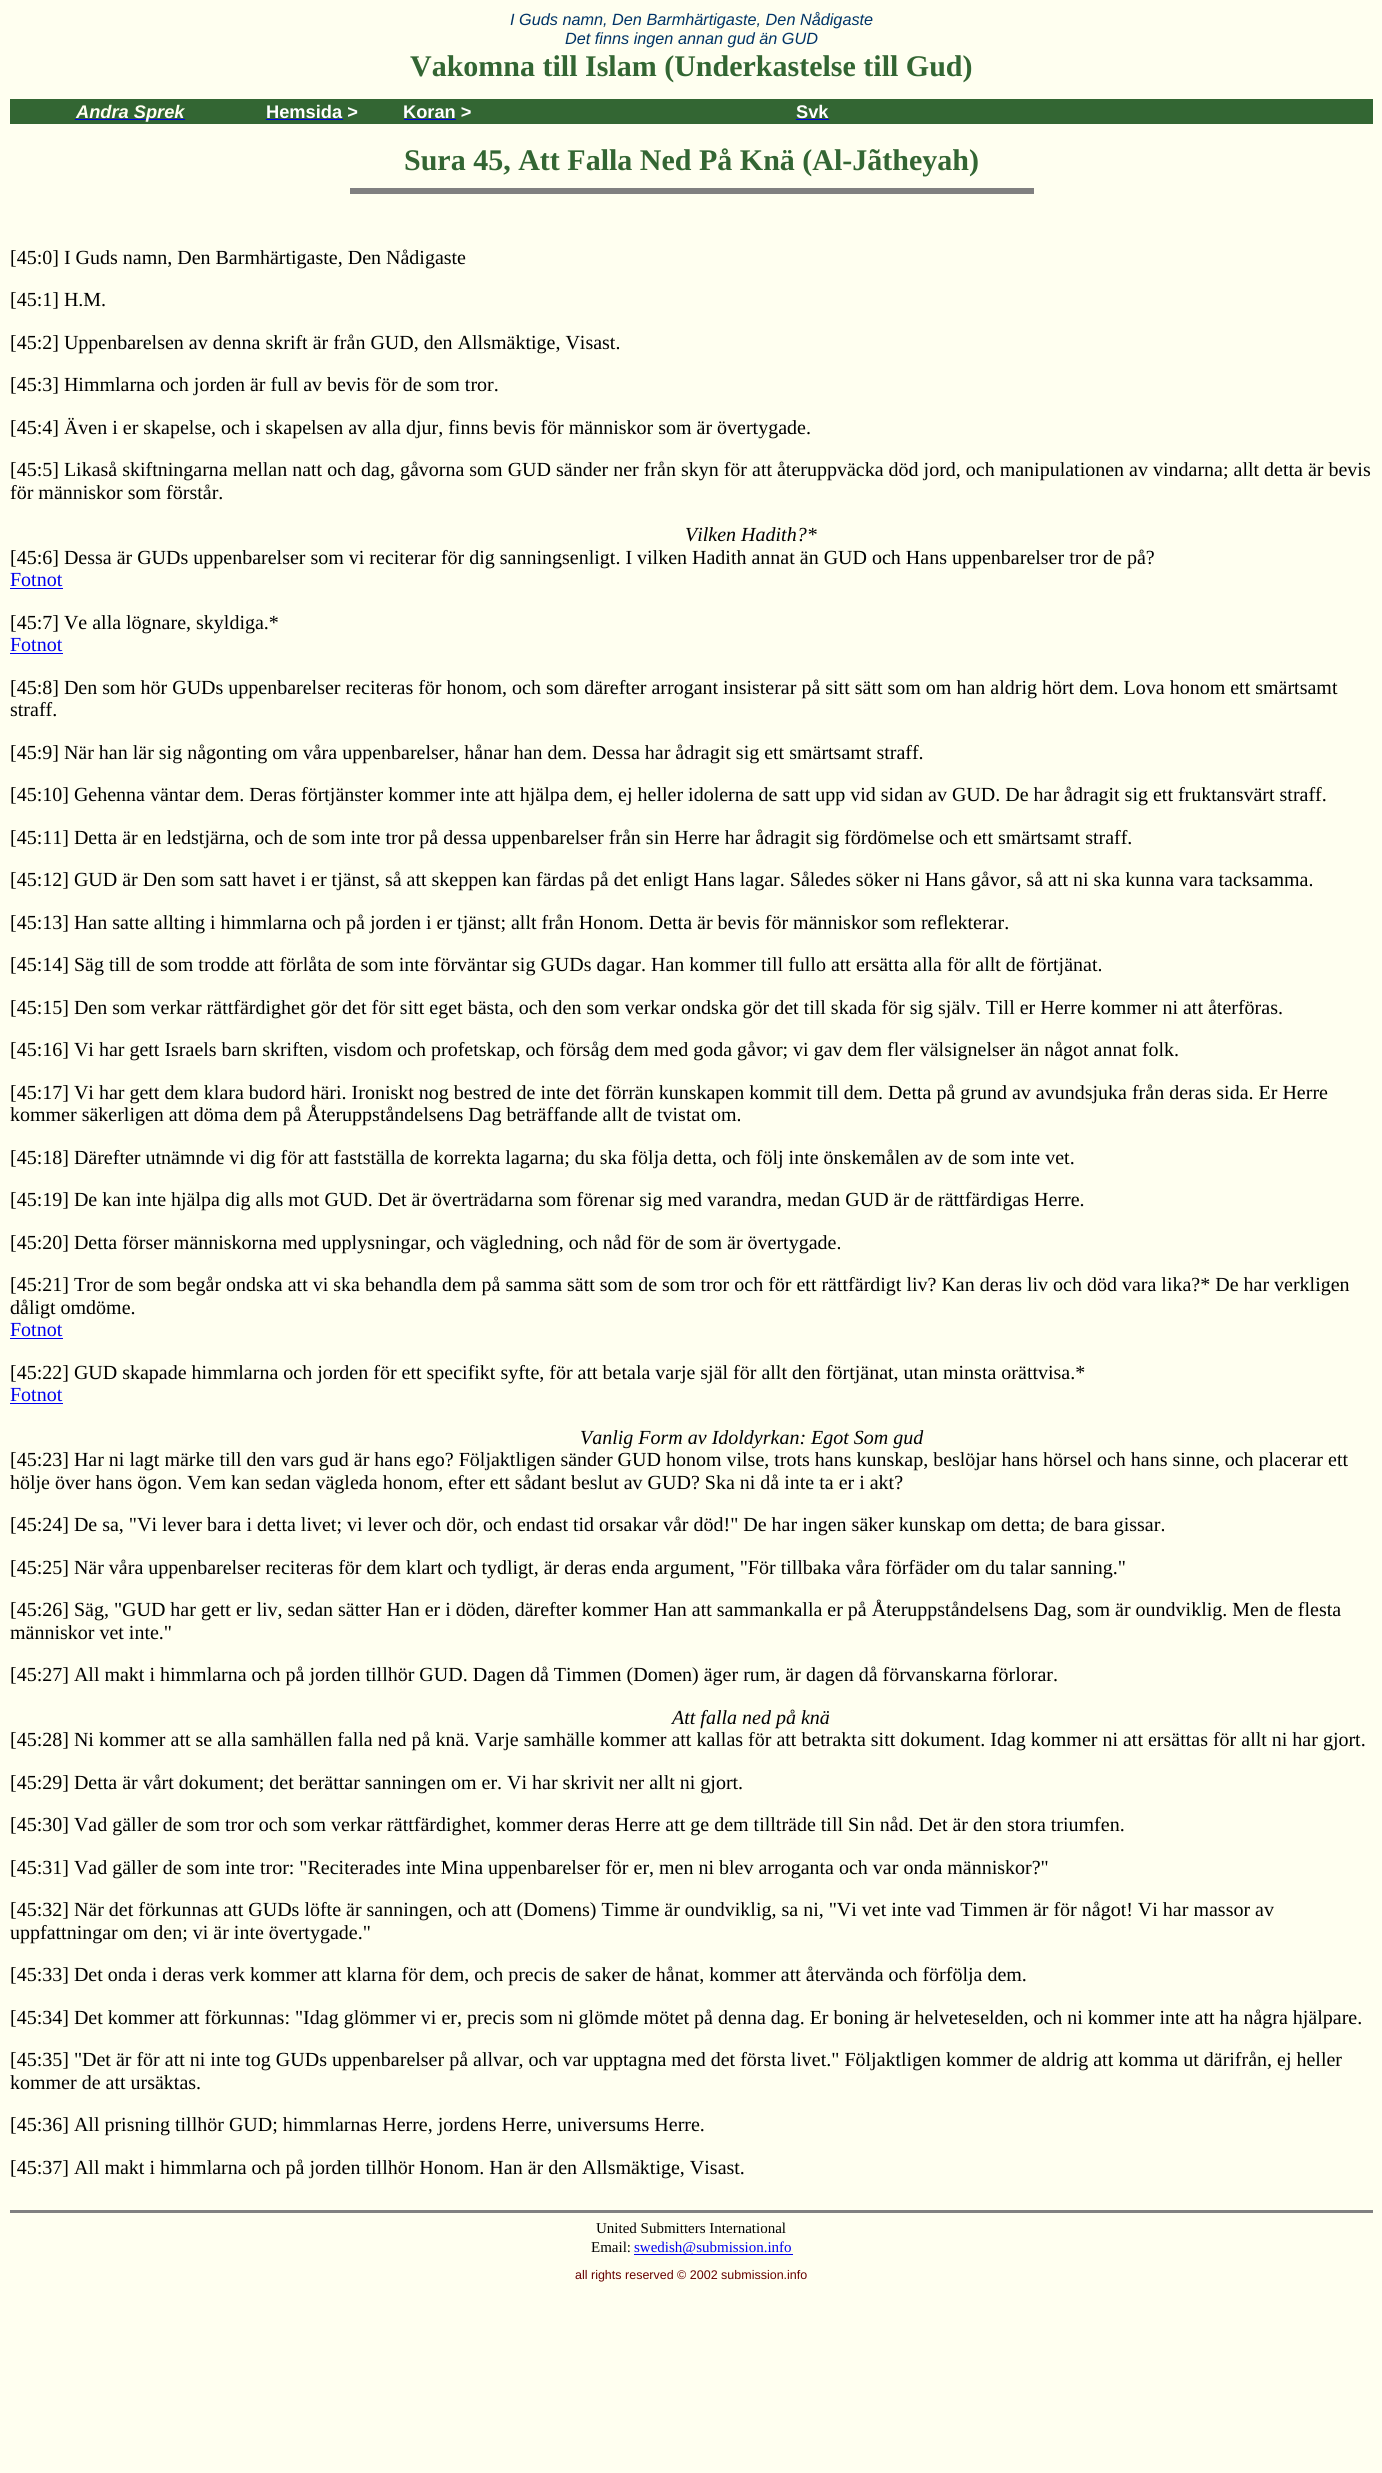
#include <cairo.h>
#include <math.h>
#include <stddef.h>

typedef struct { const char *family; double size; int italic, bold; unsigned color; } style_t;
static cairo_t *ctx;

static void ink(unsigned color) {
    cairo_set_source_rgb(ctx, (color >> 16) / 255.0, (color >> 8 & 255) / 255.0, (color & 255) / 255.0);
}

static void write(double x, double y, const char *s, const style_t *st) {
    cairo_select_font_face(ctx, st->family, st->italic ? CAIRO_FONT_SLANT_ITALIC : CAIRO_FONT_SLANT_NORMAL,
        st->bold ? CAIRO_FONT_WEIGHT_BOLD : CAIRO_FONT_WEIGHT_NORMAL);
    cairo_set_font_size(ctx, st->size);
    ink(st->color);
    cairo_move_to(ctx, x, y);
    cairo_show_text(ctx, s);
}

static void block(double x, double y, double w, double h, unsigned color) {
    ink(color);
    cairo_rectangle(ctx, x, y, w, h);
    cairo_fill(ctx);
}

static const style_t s1 = {"Liberation Sans", 16.25, 1, 0, 0x003366};
static const style_t s2 = {"Liberation Serif", 30, 0, 1, 0x336633};
static const style_t s3 = {"Liberation Sans", 18.25, 1, 1, 0xfffff0};
static const style_t s4 = {"Liberation Sans", 18.25, 0, 1, 0xffffff};
static const style_t s5 = {"Liberation Serif", 20, 0, 0, 0x000000};
static const style_t s6 = {"Liberation Serif", 20, 1, 0, 0x000000};
static const style_t s7 = {"Liberation Serif", 20, 0, 0, 0x0000ee};
static const style_t s8 = {"Liberation Serif", 15, 0, 0, 0x000000};
static const style_t s9 = {"Liberation Serif", 15, 0, 0, 0x0000ee};
static const style_t s10 = {"Liberation Sans", 12.5, 0, 0, 0x660000};

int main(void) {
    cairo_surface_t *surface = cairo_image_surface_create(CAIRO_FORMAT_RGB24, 1382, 2473);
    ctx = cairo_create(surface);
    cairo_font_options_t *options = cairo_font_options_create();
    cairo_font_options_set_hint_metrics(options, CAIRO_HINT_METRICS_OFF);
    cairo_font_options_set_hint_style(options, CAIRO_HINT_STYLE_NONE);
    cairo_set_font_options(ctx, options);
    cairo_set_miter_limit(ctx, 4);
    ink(0xfffff0);
    cairo_paint(ctx);
    write(510, 25, "I Guds namn, Den Barmhärtigaste, Den Nådigaste", &s1);
    write(565, 44, "Det finns ingen annan gud än GUD", &s1);
    write(410, 76, "Vakomna till Islam (Underkastelse till Gud)", &s2);
    block(10, 99, 1363, 25, 0x336633);
    block(75, 119, 110, 1, 0x0000ee);
    write(76, 118, "Andra Sprek", &s3);
    write(266, 118, "Hemsida >", &s4);
    block(266, 119, 77, 1, 0x0000ee);
    write(403, 118, "Koran >", &s4);
    block(404, 119, 52, 1, 0x0000ee);
    write(796, 118, "Svk", &s4);
    block(796, 119, 33, 1, 0x0000ee);
    write(404, 170, "Sura 45, Att Falla Ned På Knä (Al-Jãtheyah)", &s2);
    block(350, 188, 684, 6, 0x808080);
    write(10, 264, "[45:0] I Guds namn, Den Barmhärtigaste, Den Nådigaste", &s5);
    write(10, 306, "[45:1] H.M.", &s5);
    write(10, 349, "[45:2] Uppenbarelsen av denna skrift är från GUD, den Allsmäktige, Visast.", &s5);
    write(10, 391, "[45:3] Himmlarna och jorden är full av bevis för de som tror.", &s5);
    write(10, 434, "[45:4] Även i er skapelse, och i skapelsen av alla djur, finns bevis för människor som är övertygade.", &s5);
    write(10, 476, "[45:5] Likaså skiftningarna mellan natt och dag, gåvorna som GUD sänder ner från skyn för att återuppväcka död jord, och manipulationen av vindarna; allt detta är bevis", &s5);
    write(10, 499, "för människor som förstår.", &s5);
    write(685, 541, "Vilken Hadith?*", &s6);
    write(10, 564, "[45:6] Dessa är GUDs uppenbarelser som vi reciterar för dig sanningsenligt. I vilken Hadith annat än GUD och Hans uppenbarelser tror de på?", &s5);
    write(10, 586, "Fotnot", &s7);
    block(10, 588, 53, 1, 0x0000ee);
    write(10, 629, "[45:7] Ve alla lögnare, skyldiga.*", &s5);
    write(10, 651, "Fotnot", &s7);
    block(10, 653, 53, 1, 0x0000ee);
    write(10, 694, "[45:8] Den som hör GUDs uppenbarelser reciteras för honom, och som därefter arrogant insisterar på sitt sätt som om han aldrig hört dem. Lova honom ett smärtsamt", &s5);
    write(10, 716, "straff.", &s5);
    write(10, 759, "[45:9] När han lär sig någonting om våra uppenbarelser, hånar han dem. Dessa har ådragit sig ett smärtsamt straff.", &s5);
    write(10, 801, "[45:10] Gehenna väntar dem. Deras förtjänster kommer inte att hjälpa dem, ej heller idolerna de satt upp vid sidan av GUD. De har ådragit sig ett fruktansvärt straff.", &s5);
    write(10, 844, "[45:11] Detta är en ledstjärna, och de som inte tror på dessa uppenbarelser från sin Herre har ådragit sig fördömelse och ett smärtsamt straff.", &s5);
    write(10, 886, "[45:12] GUD är Den som satt havet i er tjänst, så att skeppen kan färdas på det enligt Hans lagar. Således söker ni Hans gåvor, så att ni ska kunna vara tacksamma.", &s5);
    write(10, 929, "[45:13] Han satte allting i himmlarna och på jorden i er tjänst; allt från Honom. Detta är bevis för människor som reflekterar.", &s5);
    write(10, 971, "[45:14] Säg till de som trodde att förlåta de som inte förväntar sig GUDs dagar. Han kommer till fullo att ersätta alla för allt de förtjänat.", &s5);
    write(10, 1014, "[45:15] Den som verkar rättfärdighet gör det för sitt eget bästa, och den som verkar ondska gör det till skada för sig själv. Till er Herre kommer ni att återföras.", &s5);
    write(10, 1056, "[45:16] Vi har gett Israels barn skriften, visdom och profetskap, och försåg dem med goda gåvor; vi gav dem fler välsignelser än något annat folk.", &s5);
    write(10, 1099, "[45:17] Vi har gett dem klara budord häri. Ironiskt nog bestred de inte det förrän kunskapen kommit till dem. Detta på grund av avundsjuka från deras sida. Er Herre", &s5);
    write(10, 1121, "kommer säkerligen att döma dem på Återuppståndelsens Dag beträffande allt de tvistat om.", &s5);
    write(10, 1164, "[45:18] Därefter utnämnde vi dig för att fastställa de korrekta lagarna; du ska följa detta, och följ inte önskemålen av de som inte vet.", &s5);
    write(10, 1206, "[45:19] De kan inte hjälpa dig alls mot GUD. Det är överträdarna som förenar sig med varandra, medan GUD är de rättfärdigas Herre.", &s5);
    write(10, 1249, "[45:20] Detta förser människorna med upplysningar, och vägledning, och nåd för de som är övertygade.", &s5);
    write(10, 1291, "[45:21] Tror de som begår ondska att vi ska behandla dem på samma sätt som de som tror och för ett rättfärdigt liv? Kan deras liv och död vara lika?* De har verkligen", &s5);
    write(10, 1314, "dåligt omdöme.", &s5);
    write(10, 1336, "Fotnot", &s7);
    block(10, 1338, 53, 1, 0x0000ee);
    write(10, 1379, "[45:22] GUD skapade himmlarna och jorden för ett specifikt syfte, för att betala varje själ för allt den förtjänat, utan minsta orättvisa.*", &s5);
    write(10, 1401, "Fotnot", &s7);
    block(10, 1403, 53, 1, 0x0000ee);
    write(580, 1444, "Vanlig Form av Idoldyrkan: Egot Som gud", &s6);
    write(10, 1466, "[45:23] Har ni lagt märke till den vars gud är hans ego? Följaktligen sänder GUD honom vilse, trots hans kunskap, beslöjar hans hörsel och hans sinne, och placerar ett", &s5);
    write(10, 1489, "hölje över hans ögon. Vem kan sedan vägleda honom, efter ett sådant beslut av GUD? Ska ni då inte ta er i akt?", &s5);
    write(10, 1531, "[45:24] De sa, \"Vi lever bara i detta livet; vi lever och dör, och endast tid orsakar vår död!\" De har ingen säker kunskap om detta; de bara gissar.", &s5);
    write(10, 1574, "[45:25] När våra uppenbarelser reciteras för dem klart och tydligt, är deras enda argument, \"För tillbaka våra förfäder om du talar sanning.\"", &s5);
    write(10, 1616, "[45:26] Säg, \"GUD har gett er liv, sedan sätter Han er i döden, därefter kommer Han att sammankalla er på Återuppståndelsens Dag, som är oundviklig. Men de flesta", &s5);
    write(10, 1639, "människor vet inte.\"", &s5);
    write(10, 1681, "[45:27] All makt i himmlarna och på jorden tillhör GUD. Dagen då Timmen (Domen) äger rum, är dagen då förvanskarna förlorar.", &s5);
    write(672, 1724, "Att falla ned på knä", &s6);
    write(10, 1746, "[45:28] Ni kommer att se alla samhällen falla ned på knä. Varje samhälle kommer att kallas för att betrakta sitt dokument. Idag kommer ni att ersättas för allt ni har gjort.", &s5);
    write(10, 1789, "[45:29] Detta är vårt dokument; det berättar sanningen om er. Vi har skrivit ner allt ni gjort.", &s5);
    write(10, 1831, "[45:30] Vad gäller de som tror och som verkar rättfärdighet, kommer deras Herre att ge dem tillträde till Sin nåd. Det är den stora triumfen.", &s5);
    write(10, 1874, "[45:31] Vad gäller de som inte tror: \"Reciterades inte Mina uppenbarelser för er, men ni blev arroganta och var onda människor?\"", &s5);
    write(10, 1916, "[45:32] När det förkunnas att GUDs löfte är sanningen, och att (Domens) Timme är oundviklig, sa ni, \"Vi vet inte vad Timmen är för något! Vi har massor av", &s5);
    write(10, 1939, "uppfattningar om den; vi är inte övertygade.\"", &s5);
    write(10, 1981, "[45:33] Det onda i deras verk kommer att klarna för dem, och precis de saker de hånat, kommer att återvända och förfölja dem.", &s5);
    write(10, 2024, "[45:34] Det kommer att förkunnas: \"Idag glömmer vi er, precis som ni glömde mötet på denna dag. Er boning är helveteselden, och ni kommer inte att ha några hjälpare.", &s5);
    write(10, 2066, "[45:35] \"Det är för att ni inte tog GUDs uppenbarelser på allvar, och var upptagna med det första livet.\" Följaktligen kommer de aldrig att komma ut därifrån, ej heller", &s5);
    write(10, 2089, "kommer de att ursäktas.", &s5);
    write(10, 2131, "[45:36] All prisning tillhör GUD; himmlarnas Herre, jordens Herre, universums Herre.", &s5);
    write(10, 2174, "[45:37] All makt i himmlarna och på jorden tillhör Honom. Han är den Allsmäktige, Visast.", &s5);
    block(10, 2210, 1363, 3, 0x808080);
    write(596, 2233, "United Submitters International", &s8);
    write(591, 2252, "Email:", &s8);
    block(634, 2254, 159, 1, 0x0000ee);
    write(634, 2252, "swedish@submission.info", &s9);
    write(575, 2279, "all rights reserved © 2002 submission.info", &s10);
    cairo_surface_write_to_png(surface, "screenshot.png");
    cairo_font_options_destroy(options);
    cairo_destroy(ctx);
    cairo_surface_destroy(surface);
    return 0;
}
